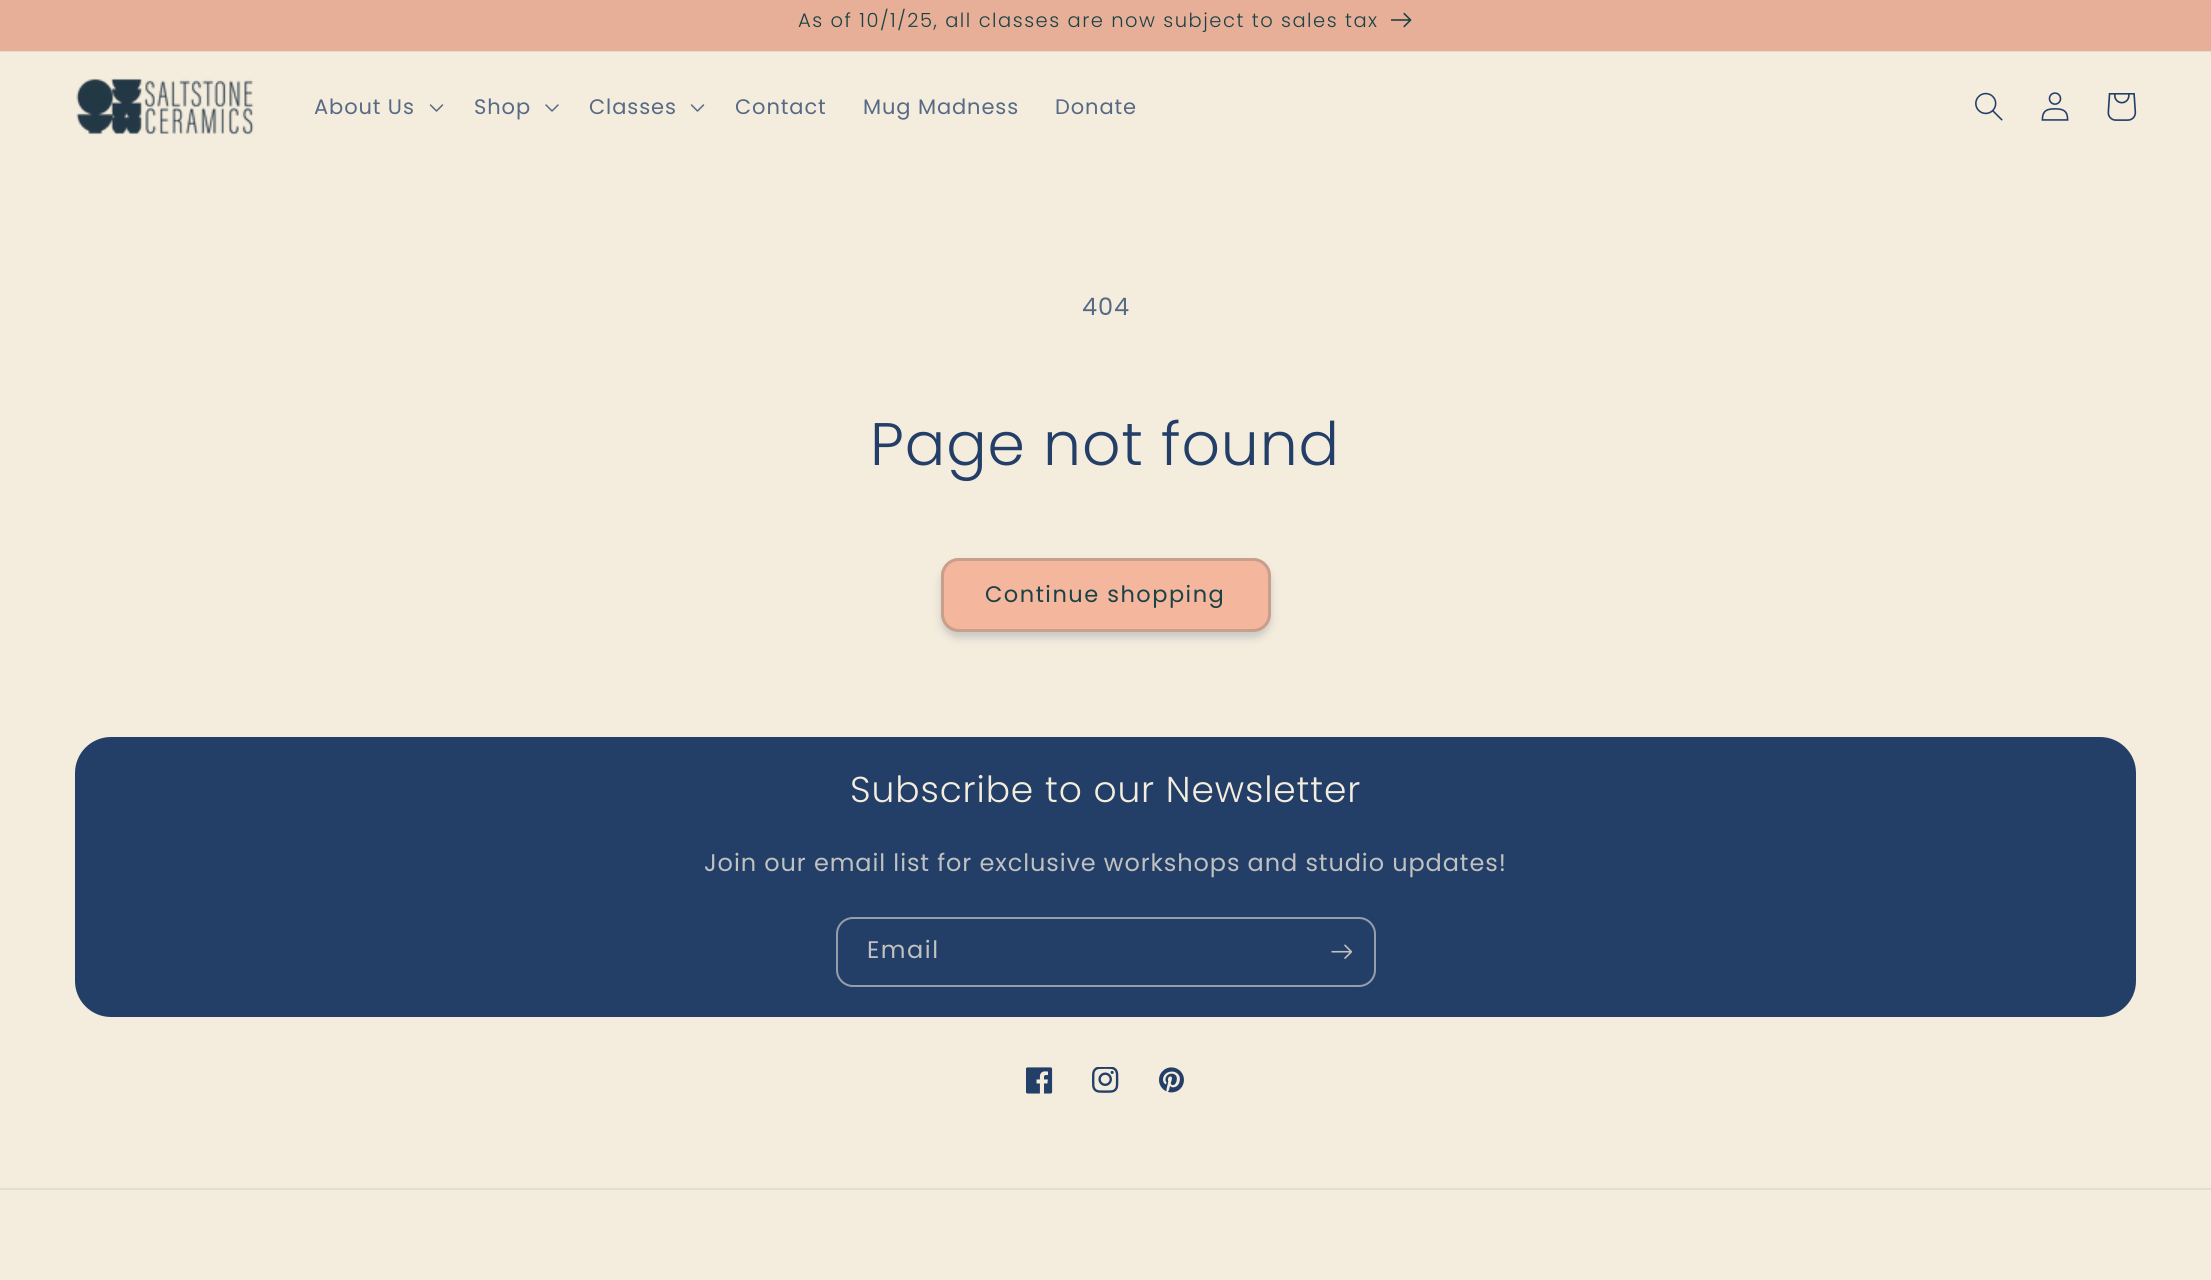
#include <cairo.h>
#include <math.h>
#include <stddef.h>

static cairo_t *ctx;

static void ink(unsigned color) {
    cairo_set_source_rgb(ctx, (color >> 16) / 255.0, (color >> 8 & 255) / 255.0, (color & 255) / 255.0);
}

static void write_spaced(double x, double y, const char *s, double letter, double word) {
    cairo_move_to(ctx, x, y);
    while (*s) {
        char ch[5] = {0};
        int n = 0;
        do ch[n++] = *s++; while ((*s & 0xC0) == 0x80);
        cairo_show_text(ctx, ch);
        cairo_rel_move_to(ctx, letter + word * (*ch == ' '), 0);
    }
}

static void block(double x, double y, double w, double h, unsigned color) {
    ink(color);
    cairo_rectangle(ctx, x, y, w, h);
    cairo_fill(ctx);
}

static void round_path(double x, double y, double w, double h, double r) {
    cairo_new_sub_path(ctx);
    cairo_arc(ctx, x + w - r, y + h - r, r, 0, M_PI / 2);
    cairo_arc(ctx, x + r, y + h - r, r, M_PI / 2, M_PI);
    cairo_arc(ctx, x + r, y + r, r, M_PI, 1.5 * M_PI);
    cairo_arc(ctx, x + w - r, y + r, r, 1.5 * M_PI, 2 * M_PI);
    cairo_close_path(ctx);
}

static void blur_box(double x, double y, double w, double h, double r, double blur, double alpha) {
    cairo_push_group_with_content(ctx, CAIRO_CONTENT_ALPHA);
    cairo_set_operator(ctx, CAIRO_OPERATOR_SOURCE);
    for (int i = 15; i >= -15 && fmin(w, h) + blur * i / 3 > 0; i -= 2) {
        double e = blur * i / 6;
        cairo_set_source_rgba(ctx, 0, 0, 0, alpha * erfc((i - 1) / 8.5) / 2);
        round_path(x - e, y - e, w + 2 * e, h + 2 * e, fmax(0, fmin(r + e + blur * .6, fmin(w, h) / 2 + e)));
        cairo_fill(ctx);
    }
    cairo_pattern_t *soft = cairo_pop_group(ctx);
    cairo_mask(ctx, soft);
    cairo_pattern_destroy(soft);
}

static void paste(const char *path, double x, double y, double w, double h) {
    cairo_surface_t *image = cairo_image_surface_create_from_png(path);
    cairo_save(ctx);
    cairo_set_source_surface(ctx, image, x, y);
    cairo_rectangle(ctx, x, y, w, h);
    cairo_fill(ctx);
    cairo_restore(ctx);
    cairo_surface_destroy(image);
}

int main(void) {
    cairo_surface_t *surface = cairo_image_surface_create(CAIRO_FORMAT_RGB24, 2211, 1280);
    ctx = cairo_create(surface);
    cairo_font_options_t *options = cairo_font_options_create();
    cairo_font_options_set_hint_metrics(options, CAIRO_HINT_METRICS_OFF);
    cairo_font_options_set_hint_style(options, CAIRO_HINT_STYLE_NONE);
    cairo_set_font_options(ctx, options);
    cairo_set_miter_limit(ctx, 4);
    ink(0xf4ecdd);
    cairo_paint(ctx);
    block(0, 51, 2211, 1, 0xe3ded1);
    block(0, 50, 2211, 1, 0xe3ad96);
    block(0, 0, 2211, 50, 0xe7af98);
    cairo_select_font_face(ctx, "Poppins Light", CAIRO_FONT_SLANT_NORMAL, CAIRO_FONT_WEIGHT_NORMAL);
    cairo_set_font_size(ctx, 19.5);
    ink(0x1a4245);
    write_spaced(798, 27, "As of 10/1/25, all classes are now subject to sales tax", 1.5, 0);
    paste("pic1.png", 1391, 12, 21, 16);
    paste("pic2.png", 76, 78, 178, 57);
    cairo_select_font_face(ctx, "Poppins", CAIRO_FONT_SLANT_NORMAL, CAIRO_FONT_WEIGHT_NORMAL);
    cairo_set_font_size(ctx, 21);
    ink(0x576a85);
    write_spaced(314, 114, "About Us", 0.9, 0);
    paste("pic3.png", 429, 104, 15, 8);
    write_spaced(474, 114, "Shop", 0.9, 0);
    paste("pic4.png", 545, 104, 14, 8);
    write_spaced(589, 114, "Classes", 0.9, 0);
    paste("pic3.png", 690, 104, 15, 8);
    write_spaced(735, 114, "Contact", 0.9, 0);
    write_spaced(863, 114, "Mug Madness", 0.9, 0);
    write_spaced(1055, 114, "Donate", 0.9, 0);
    paste("pic5.png", 1975, 92, 28, 29);
    paste("pic6.png", 2041, 92, 28, 29);
    paste("pic7.png", 2107, 93, 30, 28);
    cairo_set_font_size(ctx, 24);
    write_spaced(1082, 315, "404", 0.9, 0);
    cairo_select_font_face(ctx, "Poppins Light", CAIRO_FONT_SLANT_NORMAL, CAIRO_FONT_WEIGHT_NORMAL);
    cairo_set_font_size(ctx, 60);
    ink(0x233f68);
    write_spaced(870, 465, "Page not found", 0.9, 0);
    ink(0x233f68);
    blur_box(941, 564, 330, 74, 18, 4, 0.2);
    ink(0xf4b69d);
    round_path(941, 558, 330, 74, 18);
    cairo_fill(ctx);
    round_path(942.5, 559.5, 327, 71, 16.5);
    cairo_set_line_width(ctx, 3);
    cairo_stroke(ctx);
    round_path(942.5, 559.5, 327, 71, 16.5);
    cairo_set_source_rgba(ctx, 0.102, 0.259, 0.271, 0.2);
    cairo_stroke(ctx);
    cairo_select_font_face(ctx, "Poppins", CAIRO_FONT_SLANT_NORMAL, CAIRO_FONT_WEIGHT_NORMAL);
    cairo_set_font_size(ctx, 22.5);
    ink(0x1a4245);
    write_spaced(985, 602, "Continue shopping", 1.5, 0);
    ink(0x233f68);
    round_path(75, 737, 2061, 280, 36);
    cairo_fill(ctx);
    cairo_select_font_face(ctx, "Poppins Light", CAIRO_FONT_SLANT_NORMAL, CAIRO_FONT_WEIGHT_NORMAL);
    cairo_set_font_size(ctx, 36);
    ink(0xf4ecdd);
    write_spaced(850, 802, "Subscribe to our Newsletter", 0.9, 0);
    cairo_select_font_face(ctx, "Poppins", CAIRO_FONT_SLANT_NORMAL, CAIRO_FONT_WEIGHT_NORMAL);
    cairo_set_font_size(ctx, 24);
    ink(0xc0c1c0);
    write_spaced(704, 871, "Join our email list for exclusive workshops and studio updates!", 0.9, 0);
    round_path(837, 918, 538, 68, 16);
    ink(0x969ea8);
    cairo_set_line_width(ctx, 2);
    cairo_stroke(ctx);
    ink(0xc0c1c0);
    write_spaced(867, 958, "Email", 1.5, 0);
    paste("pic8.png", 1331, 944, 22, 15);
    paste("pic9.png", 1026, 1067, 27, 27);
    paste("pic10.png", 1092, 1067, 27, 26);
    paste("pic11.png", 1159, 1067, 25, 26);
    block(0, 1188, 2211, 2, 0xe1dfd5);
    cairo_surface_write_to_png(surface, "screenshot.png");
    cairo_font_options_destroy(options);
    cairo_destroy(ctx);
    cairo_surface_destroy(surface);
    return 0;
}
